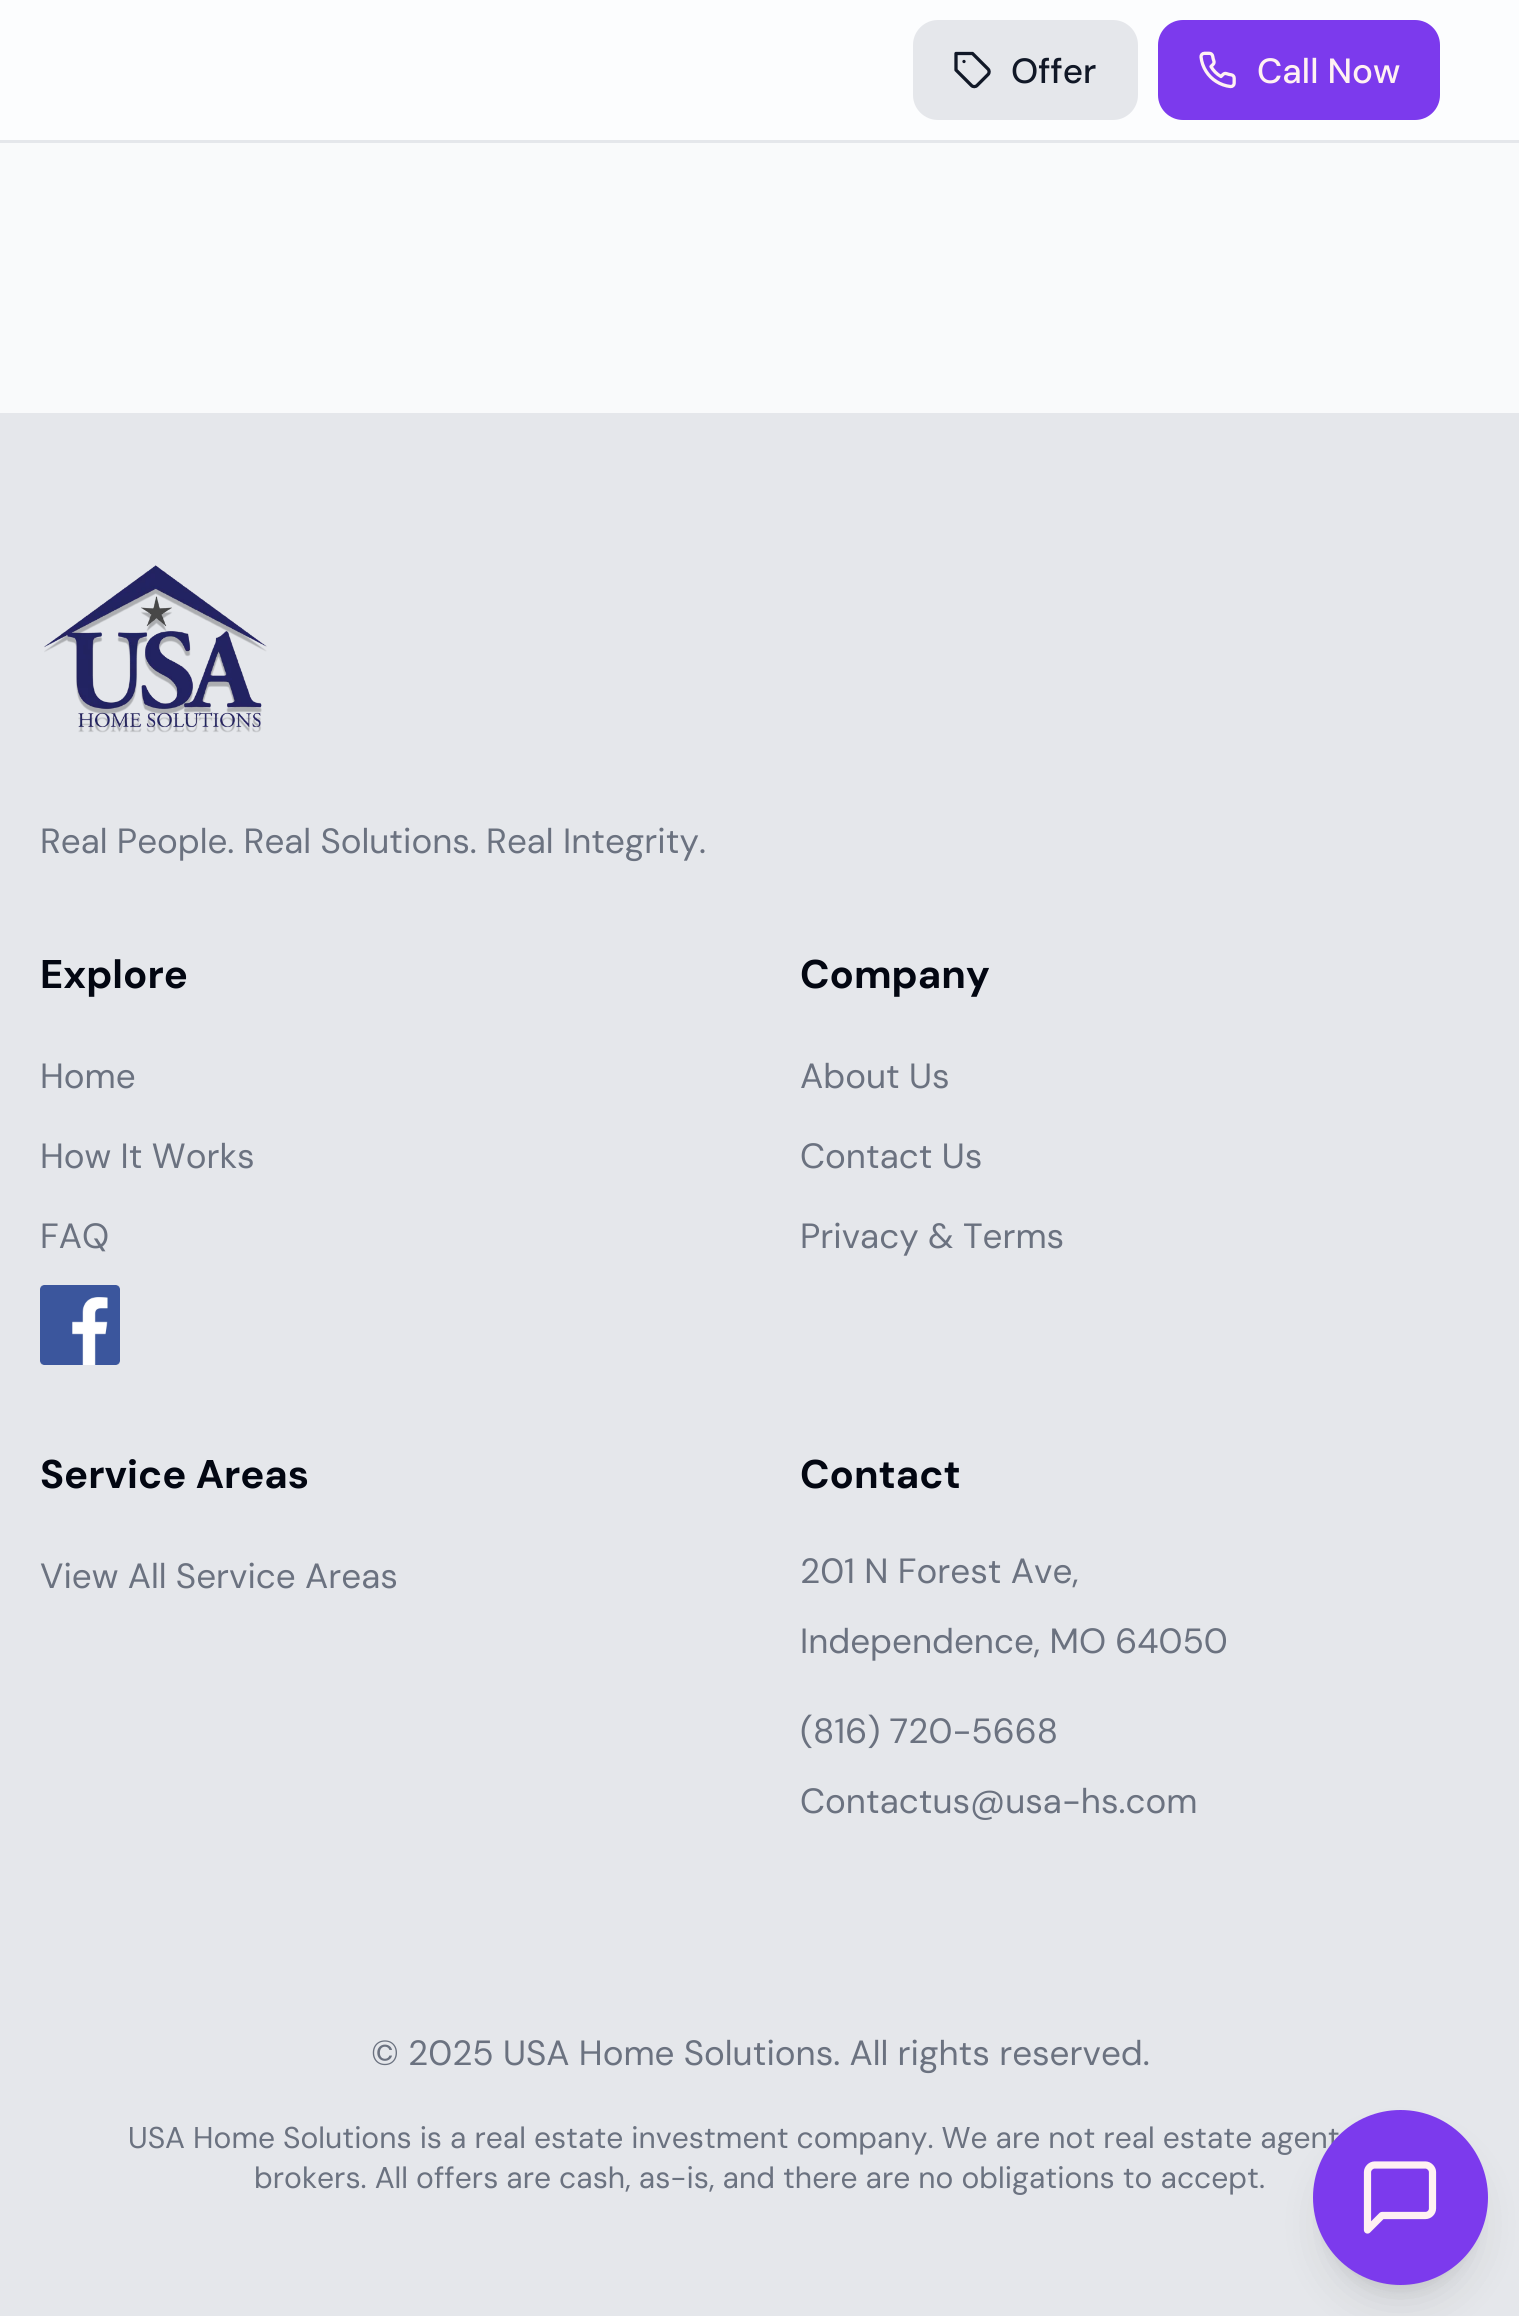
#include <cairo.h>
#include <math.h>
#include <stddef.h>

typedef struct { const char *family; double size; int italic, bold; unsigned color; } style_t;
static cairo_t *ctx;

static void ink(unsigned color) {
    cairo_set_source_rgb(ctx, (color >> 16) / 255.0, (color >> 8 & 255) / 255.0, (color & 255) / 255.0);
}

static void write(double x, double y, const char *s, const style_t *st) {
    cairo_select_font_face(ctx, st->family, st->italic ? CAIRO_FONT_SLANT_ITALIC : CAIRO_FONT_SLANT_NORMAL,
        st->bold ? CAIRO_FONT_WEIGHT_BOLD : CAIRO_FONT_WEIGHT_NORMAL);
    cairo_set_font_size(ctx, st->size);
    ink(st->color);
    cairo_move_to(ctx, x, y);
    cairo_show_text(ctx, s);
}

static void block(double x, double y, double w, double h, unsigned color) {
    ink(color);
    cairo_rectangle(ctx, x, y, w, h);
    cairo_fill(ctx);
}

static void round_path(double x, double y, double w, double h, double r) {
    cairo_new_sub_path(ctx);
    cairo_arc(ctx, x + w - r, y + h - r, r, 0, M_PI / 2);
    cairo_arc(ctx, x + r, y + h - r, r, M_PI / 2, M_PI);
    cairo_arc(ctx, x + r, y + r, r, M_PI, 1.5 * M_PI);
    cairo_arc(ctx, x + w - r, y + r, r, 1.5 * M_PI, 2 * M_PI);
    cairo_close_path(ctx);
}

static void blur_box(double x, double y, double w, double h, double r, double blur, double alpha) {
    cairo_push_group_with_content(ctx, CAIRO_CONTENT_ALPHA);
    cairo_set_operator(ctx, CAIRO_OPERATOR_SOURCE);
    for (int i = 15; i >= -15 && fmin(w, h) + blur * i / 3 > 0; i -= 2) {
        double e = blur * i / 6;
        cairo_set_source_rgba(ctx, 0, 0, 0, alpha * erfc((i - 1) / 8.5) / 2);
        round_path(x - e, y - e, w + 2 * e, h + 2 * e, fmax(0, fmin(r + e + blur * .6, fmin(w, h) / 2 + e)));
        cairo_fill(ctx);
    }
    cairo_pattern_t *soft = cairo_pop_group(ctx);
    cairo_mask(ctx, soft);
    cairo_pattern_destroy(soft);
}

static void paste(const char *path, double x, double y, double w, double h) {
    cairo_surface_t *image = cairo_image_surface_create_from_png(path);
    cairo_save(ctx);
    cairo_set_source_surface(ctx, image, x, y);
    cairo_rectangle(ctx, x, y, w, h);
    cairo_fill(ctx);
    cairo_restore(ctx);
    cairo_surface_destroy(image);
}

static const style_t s1 = {"DM Sans Medium", 35, 0, 0, 0x111827};
static const style_t s2 = {"DM Sans Medium", 35, 0, 0, 0xfff1f2};
static const style_t s3 = {"DM Sans", 35, 0, 0, 0x6b7280};
static const style_t s4 = {"DM Sans", 40, 0, 1, 0x030712};
static const style_t s5 = {"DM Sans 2", 30, 0, 0, 0x6b7280};

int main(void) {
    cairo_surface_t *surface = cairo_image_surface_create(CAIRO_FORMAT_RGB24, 1519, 2316);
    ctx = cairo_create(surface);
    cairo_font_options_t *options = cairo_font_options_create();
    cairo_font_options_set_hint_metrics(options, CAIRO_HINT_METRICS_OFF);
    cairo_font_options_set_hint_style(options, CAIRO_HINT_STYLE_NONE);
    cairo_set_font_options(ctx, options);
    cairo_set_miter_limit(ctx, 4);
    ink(0xf9fafb);
    cairo_paint(ctx);
    block(0, 0, 1519, 140, 0xfcfdfe);
    block(0, 140, 1519, 3, 0xe5e7eb);
    round_path(913, 20, 225, 100, 25);
    cairo_fill(ctx);
    cairo_new_path(ctx);
    cairo_move_to(ctx, 972.5, 53.5);
    cairo_line_to(ctx, 956, 53.5);
    cairo_line_to(ctx, 956, 70);
    cairo_line_to(ctx, 971.5, 85.5);
    cairo_curve_to(ctx, 973, 87, 975.5, 87, 977, 85.5);
    cairo_line_to(ctx, 988, 74.5);
    cairo_curve_to(ctx, 989.5, 73, 989.5, 70.5, 988, 69);
    cairo_close_path(ctx);
    cairo_move_to(ctx, 964, 61.5);
    cairo_line_to(ctx, 964, 61.5);
    ink(0x111827);
    cairo_set_line_width(ctx, 3.3);
    cairo_set_line_cap(ctx, CAIRO_LINE_CAP_ROUND);
    cairo_set_line_join(ctx, CAIRO_LINE_JOIN_ROUND);
    cairo_stroke(ctx);
    write(1011, 83, "Offer", &s1);
    ink(0x7c3aed);
    round_path(1158, 20, 282, 100, 25);
    cairo_fill(ctx);
    paste("pic1.png", 1199, 51, 37, 38);
    write(1257, 83, "Call Now", &s2);
    block(0, 413, 1519, 1903, 0xe5e7eb);
    paste("pic2.png", 44, 565, 223, 168);
    write(40, 853, "Real People. Real Solutions. Real Integrity.", &s3);
    write(40, 988, "Explore", &s4);
    write(40, 1088, "Home", &s3);
    write(40, 1168, "How It Works", &s3);
    write(40, 1248, "FAQ", &s3);
    paste("pic3.png", 40, 1285, 80, 80);
    write(800, 988, "Company", &s4);
    write(800, 1088, "About Us", &s3);
    write(800, 1168, "Contact Us", &s3);
    write(800, 1248, "Privacy & Terms", &s3);
    write(40, 1488, "Service Areas", &s4);
    write(40, 1588, "View All Service Areas", &s3);
    write(800, 1488, "Contact", &s4);
    write(800, 1583, "201 N Forest Ave,", &s3);
    write(800, 1653, "Independence, MO 64050", &s3);
    write(800, 1743, "(816) 720-5668", &s3);
    write(800, 1813, "Contactus@usa-hs.com", &s3);
    write(371, 2065, "© 2025 USA Home Solutions. All rights reserved.", &s3);
    write(128, 2148, "USA Home Solutions is a real estate investment company. We are not real estate agent", &s5);
    write(254, 2188, "brokers. All offers are cash, as-is, and there are no obligations to accept.", &s5);
    ink(0x000000);
    blur_box(1325, 2133, 150, 152, 75, 8, 0.1);
    blur_box(1323, 2145, 155, 158, 77.5, 20.5, 0.1);
    ink(0x7c3aed);
    cairo_arc(ctx, 1400.5, 2197.5, 87.5, 0, 2 * M_PI);
    cairo_fill(ctx);
    cairo_new_path(ctx);
    cairo_move_to(ctx, 1432.5, 2208.5);
    cairo_curve_to(ctx, 1432.5, 2212.5, 1429, 2215.5, 1425.5, 2215.5);
    cairo_line_to(ctx, 1382, 2215.5);
    cairo_line_to(ctx, 1367.5, 2230);
    cairo_line_to(ctx, 1367.5, 2172);
    cairo_curve_to(ctx, 1367.5, 2168.5, 1371, 2165, 1374.5, 2165);
    cairo_line_to(ctx, 1425.5, 2165);
    cairo_curve_to(ctx, 1429, 2165, 1432.5, 2168.5, 1432.5, 2172);
    cairo_close_path(ctx);
    ink(0xfff1f2);
    cairo_set_line_width(ctx, 7.2);
    cairo_stroke(ctx);
    cairo_surface_write_to_png(surface, "screenshot.png");
    cairo_font_options_destroy(options);
    cairo_destroy(ctx);
    cairo_surface_destroy(surface);
    return 0;
}
